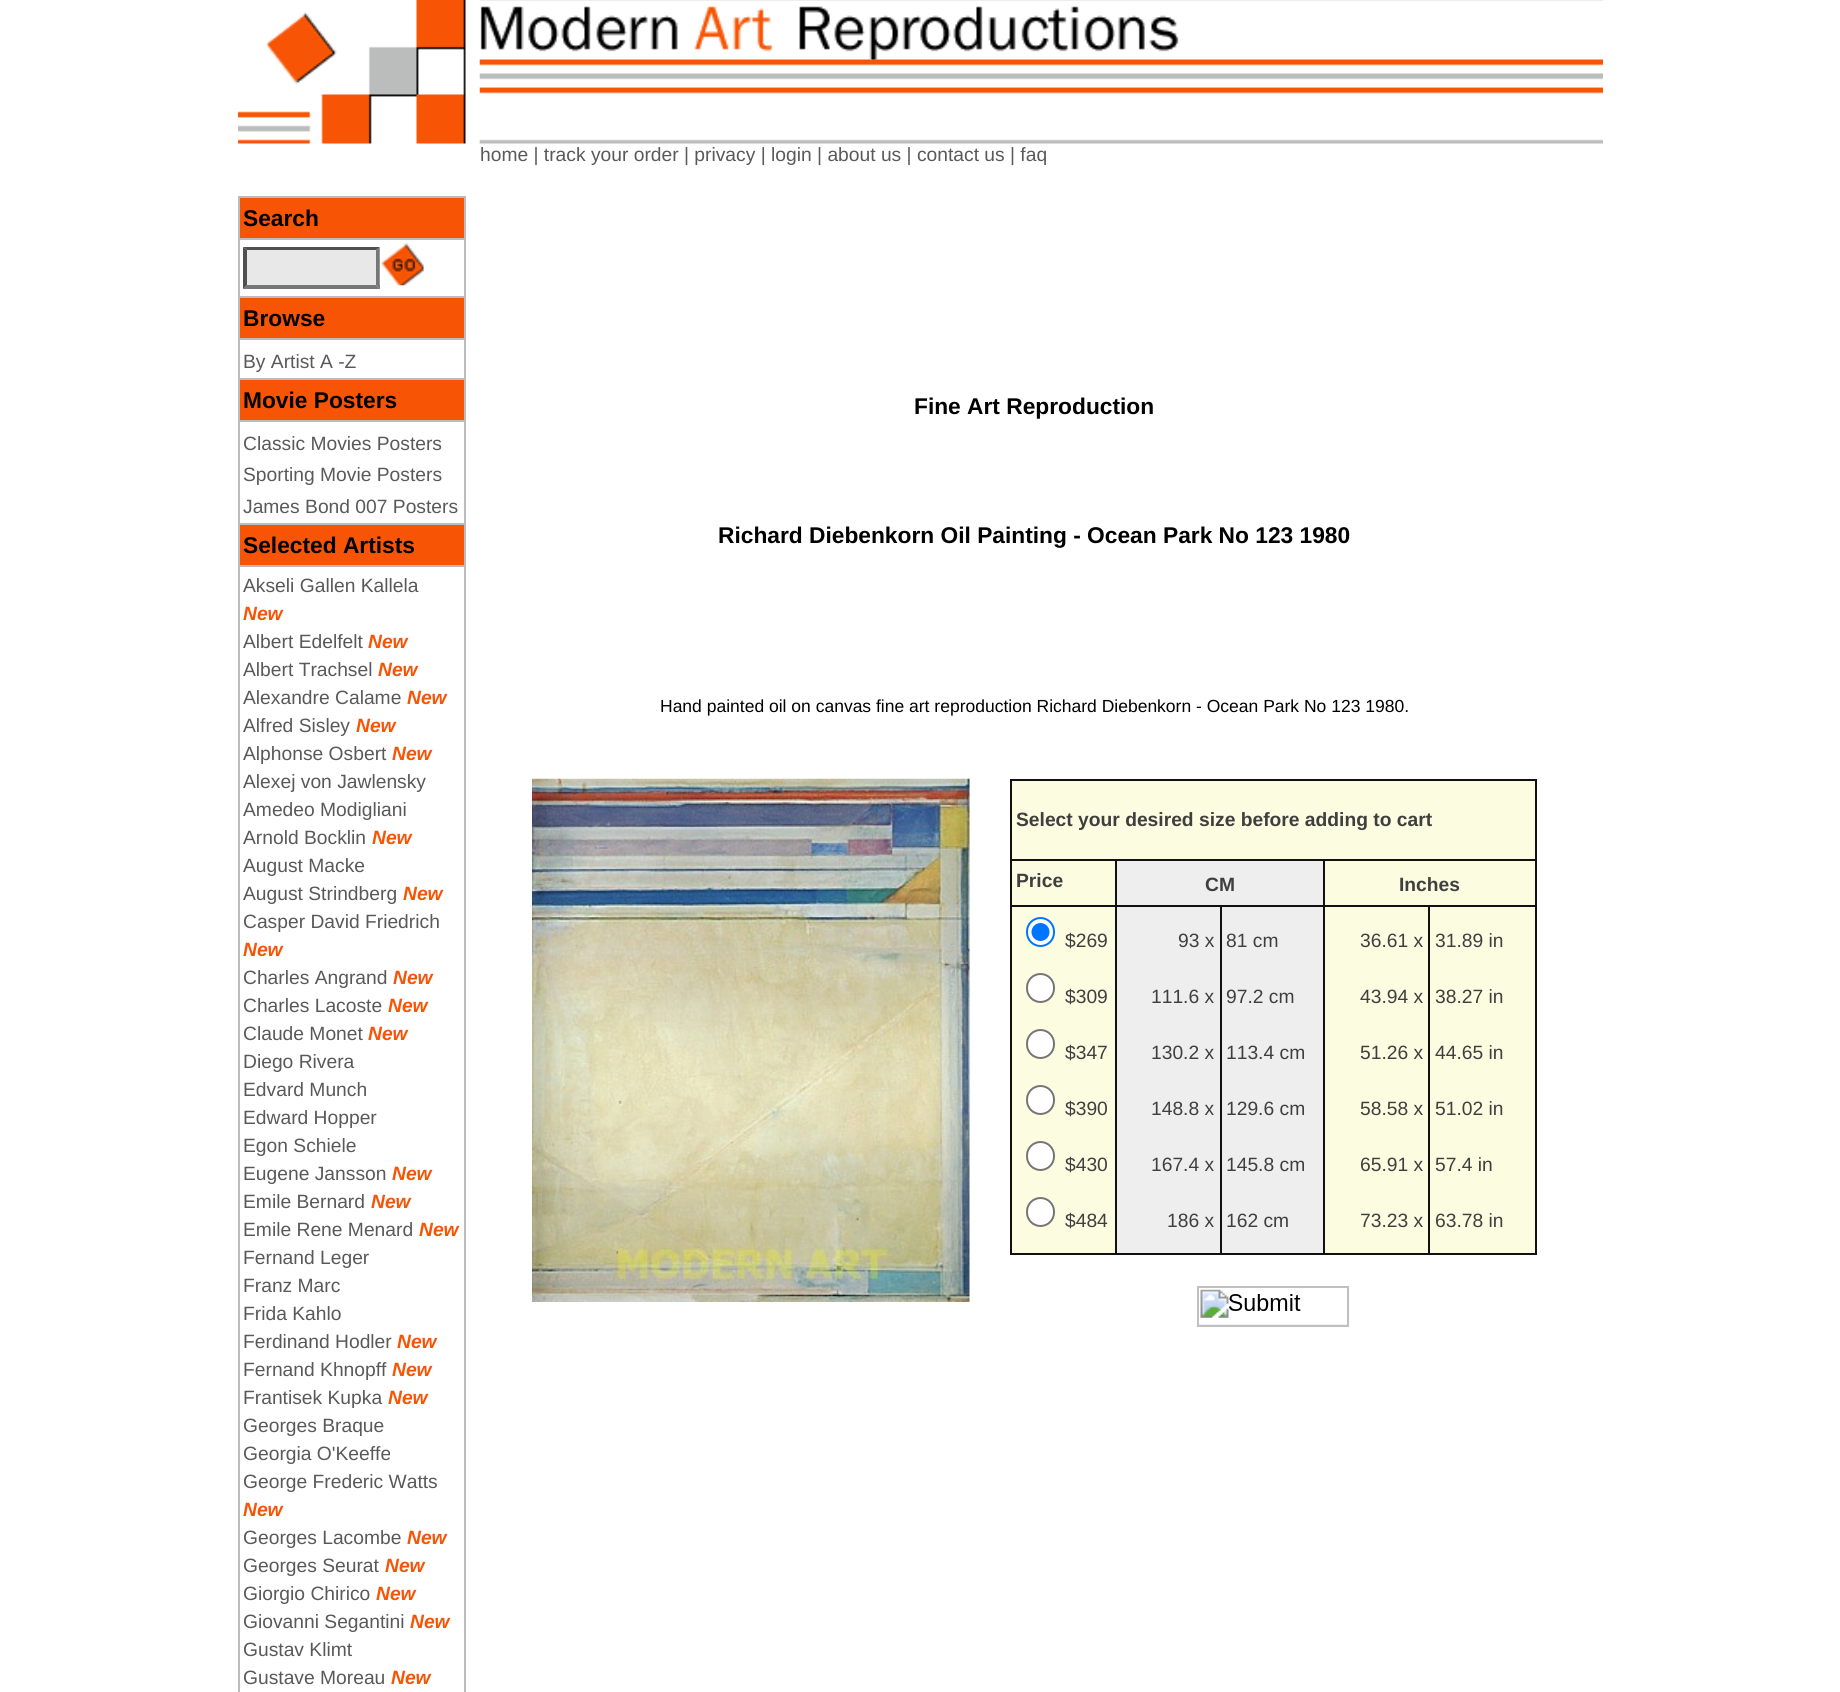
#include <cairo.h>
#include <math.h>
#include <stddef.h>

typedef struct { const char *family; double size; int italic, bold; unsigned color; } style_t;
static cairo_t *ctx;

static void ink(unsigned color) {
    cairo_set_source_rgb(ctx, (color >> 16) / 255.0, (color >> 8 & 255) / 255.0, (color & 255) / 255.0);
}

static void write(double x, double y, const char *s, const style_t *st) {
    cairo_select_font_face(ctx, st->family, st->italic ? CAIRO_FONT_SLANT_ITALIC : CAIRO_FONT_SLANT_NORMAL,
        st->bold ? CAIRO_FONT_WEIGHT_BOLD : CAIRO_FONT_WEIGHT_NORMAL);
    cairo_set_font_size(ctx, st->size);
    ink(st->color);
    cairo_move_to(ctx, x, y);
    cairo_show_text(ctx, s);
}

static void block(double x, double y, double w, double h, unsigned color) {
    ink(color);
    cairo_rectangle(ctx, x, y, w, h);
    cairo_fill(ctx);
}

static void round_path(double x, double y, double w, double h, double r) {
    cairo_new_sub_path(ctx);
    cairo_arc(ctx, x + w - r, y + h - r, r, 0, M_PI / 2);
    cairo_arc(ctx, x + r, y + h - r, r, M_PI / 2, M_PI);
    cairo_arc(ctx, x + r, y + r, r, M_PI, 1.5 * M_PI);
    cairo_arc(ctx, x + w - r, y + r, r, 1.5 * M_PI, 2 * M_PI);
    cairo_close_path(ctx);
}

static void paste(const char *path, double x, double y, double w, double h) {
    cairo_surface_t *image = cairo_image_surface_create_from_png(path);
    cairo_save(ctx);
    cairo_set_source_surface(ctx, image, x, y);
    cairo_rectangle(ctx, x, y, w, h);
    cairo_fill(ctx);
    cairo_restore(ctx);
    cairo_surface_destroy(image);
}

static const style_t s1 = {"Liberation Sans", 19.25, 0, 0, 0x595959};
static const style_t s2 = {"Liberation Sans", 22.75, 0, 1, 0x000000};
static const style_t s3 = {"Liberation Sans", 19.25, 1, 1, 0xf75505};
static const style_t s4 = {"Liberation Sans", 17.5, 0, 0, 0x000000};
static const style_t s5 = {"Liberation Sans", 19.25, 0, 1, 0x3f3f3f};
static const style_t s6 = {"Liberation Sans", 19.25, 0, 0, 0x3f3f3f};

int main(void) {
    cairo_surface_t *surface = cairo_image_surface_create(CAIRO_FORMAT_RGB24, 1840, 1692);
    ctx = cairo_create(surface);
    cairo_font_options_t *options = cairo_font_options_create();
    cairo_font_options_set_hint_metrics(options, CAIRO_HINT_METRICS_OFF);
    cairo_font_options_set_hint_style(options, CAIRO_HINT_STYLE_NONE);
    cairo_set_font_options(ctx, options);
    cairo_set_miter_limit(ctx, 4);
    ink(0xffffff);
    cairo_paint(ctx);
    paste("pic2.png", 479, 0, 1124, 144);
    paste("pic1.png", 238, 0, 242, 144);
    paste("pic3.png", 480, 6, 699, 54);
    write(480, 161, "home | track your order | privacy | login | about us | contact us | faq", &s1);
    block(238, 196, 228, 1496, 0xbbbcbc);
    block(240, 198, 224, 40, 0xf75505);
    write(243, 226, "Search", &s2);
    block(240, 240, 224, 56, 0xffffff);
    block(243, 247, 137, 42, 0xe8e8e8);
    ink(0x4f4f4f);
    cairo_new_path(ctx);
    cairo_move_to(ctx, 243, 247);
    cairo_line_to(ctx, 380, 247);
    cairo_line_to(ctx, 376, 250);
    cairo_line_to(ctx, 247, 250);
    cairo_close_path(ctx);
    cairo_fill(ctx);
    ink(0x767676);
    cairo_new_path(ctx);
    cairo_move_to(ctx, 380, 247);
    cairo_line_to(ctx, 380, 289);
    cairo_line_to(ctx, 376, 285);
    cairo_line_to(ctx, 376, 250);
    cairo_close_path(ctx);
    cairo_fill(ctx);
    cairo_new_path(ctx);
    cairo_move_to(ctx, 380, 289);
    cairo_line_to(ctx, 243, 289);
    cairo_line_to(ctx, 247, 285);
    cairo_line_to(ctx, 376, 285);
    cairo_close_path(ctx);
    cairo_fill(ctx);
    ink(0x4f4f4f);
    cairo_new_path(ctx);
    cairo_move_to(ctx, 243, 289);
    cairo_line_to(ctx, 243, 247);
    cairo_line_to(ctx, 247, 250);
    cairo_line_to(ctx, 247, 285);
    cairo_close_path(ctx);
    cairo_fill(ctx);
    paste("pic4.png", 379, 243, 45, 43);
    block(240, 298, 224, 40, 0xf75505);
    write(243, 326, "Browse", &s2);
    block(240, 340, 224, 38, 0xffffff);
    write(243, 368, "By Artist A -Z", &s1);
    block(240, 380, 224, 40, 0xf75505);
    write(243, 408, "Movie Posters", &s2);
    block(240, 422, 224, 101, 0xffffff);
    write(243, 450, "Classic Movies Posters", &s1);
    write(243, 481, "Sporting Movie Posters", &s1);
    write(243, 513, "James Bond 007 Posters", &s1);
    block(240, 525, 224, 40, 0xf75505);
    write(243, 553, "Selected Artists", &s2);
    block(240, 567, 224, 1125, 0xffffff);
    write(243, 592, "Akseli Gallen Kallela", &s1);
    write(243, 620, "New", &s3);
    write(243, 648, "Albert Edelfelt", &s1);
    write(368, 648, "New", &s3);
    write(243, 676, "Albert Trachsel", &s1);
    write(378, 676, "New", &s3);
    write(243, 704, "Alexandre Calame", &s1);
    write(407, 704, "New", &s3);
    write(243, 732, "Alfred Sisley", &s1);
    write(356, 732, "New", &s3);
    write(243, 760, "Alphonse Osbert", &s1);
    write(392, 760, "New", &s3);
    write(243, 788, "Alexej von Jawlensky", &s1);
    write(243, 816, "Amedeo Modigliani", &s1);
    write(243, 844, "Arnold Bocklin", &s1);
    write(372, 844, "New", &s3);
    write(243, 872, "August Macke", &s1);
    write(243, 900, "August Strindberg", &s1);
    write(403, 900, "New", &s3);
    write(243, 928, "Casper David Friedrich", &s1);
    write(243, 956, "New", &s3);
    write(243, 984, "Charles Angrand", &s1);
    write(393, 984, "New", &s3);
    write(243, 1012, "Charles Lacoste", &s1);
    write(388, 1012, "New", &s3);
    write(243, 1040, "Claude Monet", &s1);
    write(368, 1040, "New", &s3);
    write(243, 1068, "Diego Rivera", &s1);
    write(243, 1096, "Edvard Munch", &s1);
    write(243, 1124, "Edward Hopper", &s1);
    write(243, 1152, "Egon Schiele", &s1);
    write(243, 1180, "Eugene Jansson", &s1);
    write(392, 1180, "New", &s3);
    write(243, 1208, "Emile Bernard", &s1);
    write(371, 1208, "New", &s3);
    write(243, 1236, "Emile Rene Menard", &s1);
    write(419, 1236, "New", &s3);
    write(243, 1264, "Fernand Leger", &s1);
    write(243, 1292, "Franz Marc", &s1);
    write(243, 1320, "Frida Kahlo", &s1);
    write(243, 1348, "Ferdinand Hodler", &s1);
    write(397, 1348, "New", &s3);
    write(243, 1376, "Fernand Khnopff", &s1);
    write(392, 1376, "New", &s3);
    write(243, 1404, "Frantisek Kupka", &s1);
    write(388, 1404, "New", &s3);
    write(243, 1432, "Georges Braque", &s1);
    write(243, 1460, "Georgia O'Keeffe", &s1);
    write(243, 1488, "George Frederic Watts", &s1);
    write(243, 1516, "New", &s3);
    write(243, 1544, "Georges Lacombe", &s1);
    write(407, 1544, "New", &s3);
    write(243, 1572, "Georges Seurat", &s1);
    write(385, 1572, "New", &s3);
    write(243, 1600, "Giorgio Chirico", &s1);
    write(376, 1600, "New", &s3);
    write(243, 1628, "Giovanni Segantini", &s1);
    write(410, 1628, "New", &s3);
    write(243, 1656, "Gustav Klimt", &s1);
    write(243, 1684, "Gustave Moreau", &s1);
    write(391, 1684, "New", &s3);
    write(914, 414, "Fine Art Reproduction", &s2);
    write(718, 543, "Richard Diebenkorn Oil Painting - Ocean Park No 123 1980", &s2);
    write(660, 712, "Hand painted oil on canvas fine art reproduction Richard Diebenkorn - Ocean Park No 123 1980.", &s4);
    paste("pic5.png", 532, 778, 438, 524);
    block(1010, 779, 527, 2, 0x111111);
    block(1535, 779, 2, 476, 0x111111);
    block(1010, 1253, 527, 2, 0x111111);
    block(1010, 779, 2, 476, 0x111111);
    block(1012, 781, 523, 78, 0xfbfce0);
    write(1016, 826, "Select your desired size before adding to cart", &s5);
    block(1012, 861, 103, 44, 0xfbfce0);
    block(1323, 859, 214, 2, 0x111111);
    block(1428, 905, 109, 2, 0x111111);
    block(1428, 905, 2, 350, 0x111111);
    block(1323, 905, 107, 2, 0x111111);
    block(1323, 905, 2, 350, 0x111111);
    block(1220, 905, 105, 2, 0x111111);
    block(1323, 859, 2, 48, 0x111111);
    block(1115, 859, 210, 2, 0x111111);
    block(1220, 905, 2, 350, 0x111111);
    block(1115, 905, 107, 2, 0x111111);
    block(1115, 905, 2, 350, 0x111111);
    block(1010, 905, 107, 2, 0x111111);
    block(1115, 859, 2, 48, 0x111111);
    block(1010, 859, 107, 2, 0x111111);
    write(1016, 887, "Price", &s5);
    block(1117, 861, 206, 44, 0xeeeeee);
    write(1205, 891, "CM", &s5);
    block(1325, 861, 210, 44, 0xfbfce0);
    write(1399, 891, "Inches", &s5);
    block(1012, 907, 103, 346, 0xfbfce0);
    ink(0xffffff);
    round_path(1027, 918, 27, 28, 13.5);
    cairo_fill_preserve(ctx);
    ink(0x0075ff);
    cairo_stroke(ctx);
    cairo_arc(ctx, 1040.5, 932, 9, 0, 2 * M_PI);
    cairo_fill(ctx);
    write(1065, 947, "$269", &s6);
    ink(0xffffff);
    round_path(1027, 974, 27, 28, 13.5);
    cairo_fill_preserve(ctx);
    ink(0x767676);
    cairo_stroke(ctx);
    write(1065, 1003, "$309", &s6);
    ink(0xffffff);
    round_path(1027, 1030, 27, 28, 13.5);
    cairo_fill_preserve(ctx);
    ink(0x767676);
    cairo_stroke(ctx);
    write(1065, 1059, "$347", &s6);
    ink(0xffffff);
    round_path(1027, 1086, 27, 28, 13.5);
    cairo_fill_preserve(ctx);
    ink(0x767676);
    cairo_stroke(ctx);
    write(1065, 1115, "$390", &s6);
    ink(0xffffff);
    round_path(1027, 1142, 27, 28, 13.5);
    cairo_fill_preserve(ctx);
    ink(0x767676);
    cairo_stroke(ctx);
    write(1065, 1171, "$430", &s6);
    ink(0xffffff);
    round_path(1027, 1198, 27, 28, 13.5);
    cairo_fill_preserve(ctx);
    ink(0x767676);
    cairo_stroke(ctx);
    write(1065, 1227, "$484", &s6);
    block(1117, 907, 103, 346, 0xeeeeee);
    write(1178, 947, "93 x", &s6);
    write(1151, 1003, "111.6 x", &s6);
    write(1151, 1059, "130.2 x", &s6);
    write(1151, 1115, "148.8 x", &s6);
    write(1151, 1171, "167.4 x", &s6);
    write(1167, 1227, "186 x", &s6);
    block(1222, 907, 101, 346, 0xeeeeee);
    write(1226, 947, "81 cm", &s6);
    write(1226, 1003, "97.2 cm", &s6);
    write(1226, 1059, "113.4 cm", &s6);
    write(1226, 1115, "129.6 cm", &s6);
    write(1226, 1171, "145.8 cm", &s6);
    write(1226, 1227, "162 cm", &s6);
    block(1325, 907, 103, 346, 0xfbfce0);
    write(1360, 947, "36.61 x", &s6);
    write(1360, 1003, "43.94 x", &s6);
    write(1360, 1059, "51.26 x", &s6);
    write(1360, 1115, "58.58 x", &s6);
    write(1360, 1171, "65.91 x", &s6);
    write(1360, 1227, "73.23 x", &s6);
    block(1430, 907, 105, 346, 0xfbfce0);
    write(1435, 947, "31.89 in", &s6);
    write(1435, 1003, "38.27 in", &s6);
    write(1435, 1059, "44.65 in", &s6);
    write(1435, 1115, "51.02 in", &s6);
    write(1435, 1171, "57.4 in", &s6);
    write(1435, 1227, "63.78 in", &s6);
    paste("pic6.png", 1199, 1286, 151, 40);
    cairo_rectangle(ctx, 1198, 1287, 150, 39);
    ink(0xc0c0c0);
    cairo_stroke(ctx);
    cairo_surface_write_to_png(surface, "screenshot.png");
    cairo_font_options_destroy(options);
    cairo_destroy(ctx);
    cairo_surface_destroy(surface);
    return 0;
}
